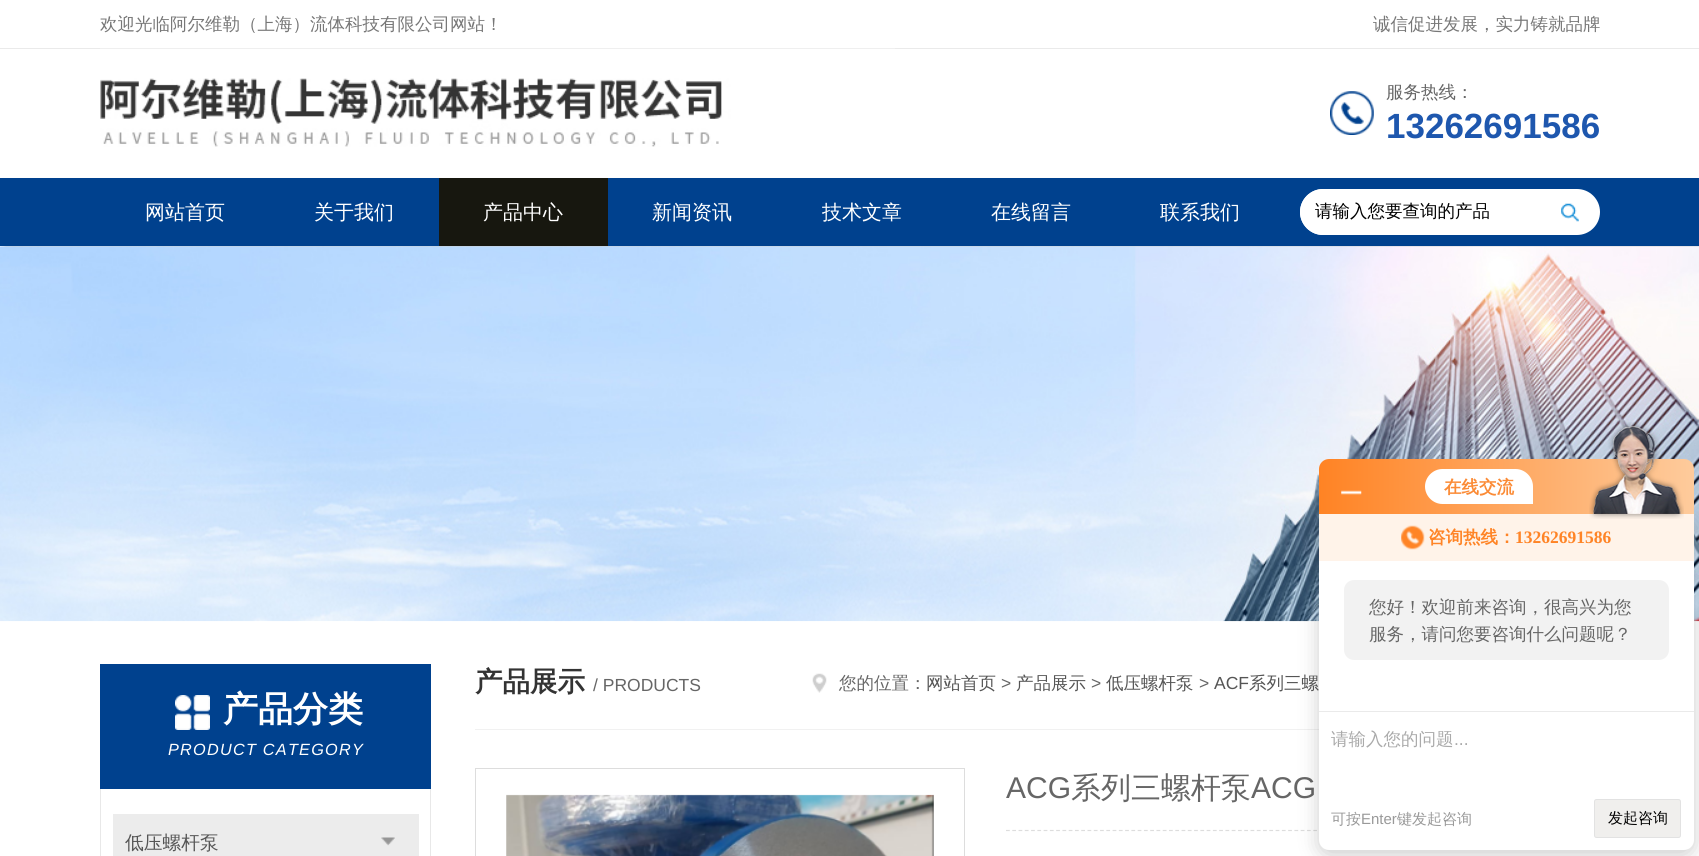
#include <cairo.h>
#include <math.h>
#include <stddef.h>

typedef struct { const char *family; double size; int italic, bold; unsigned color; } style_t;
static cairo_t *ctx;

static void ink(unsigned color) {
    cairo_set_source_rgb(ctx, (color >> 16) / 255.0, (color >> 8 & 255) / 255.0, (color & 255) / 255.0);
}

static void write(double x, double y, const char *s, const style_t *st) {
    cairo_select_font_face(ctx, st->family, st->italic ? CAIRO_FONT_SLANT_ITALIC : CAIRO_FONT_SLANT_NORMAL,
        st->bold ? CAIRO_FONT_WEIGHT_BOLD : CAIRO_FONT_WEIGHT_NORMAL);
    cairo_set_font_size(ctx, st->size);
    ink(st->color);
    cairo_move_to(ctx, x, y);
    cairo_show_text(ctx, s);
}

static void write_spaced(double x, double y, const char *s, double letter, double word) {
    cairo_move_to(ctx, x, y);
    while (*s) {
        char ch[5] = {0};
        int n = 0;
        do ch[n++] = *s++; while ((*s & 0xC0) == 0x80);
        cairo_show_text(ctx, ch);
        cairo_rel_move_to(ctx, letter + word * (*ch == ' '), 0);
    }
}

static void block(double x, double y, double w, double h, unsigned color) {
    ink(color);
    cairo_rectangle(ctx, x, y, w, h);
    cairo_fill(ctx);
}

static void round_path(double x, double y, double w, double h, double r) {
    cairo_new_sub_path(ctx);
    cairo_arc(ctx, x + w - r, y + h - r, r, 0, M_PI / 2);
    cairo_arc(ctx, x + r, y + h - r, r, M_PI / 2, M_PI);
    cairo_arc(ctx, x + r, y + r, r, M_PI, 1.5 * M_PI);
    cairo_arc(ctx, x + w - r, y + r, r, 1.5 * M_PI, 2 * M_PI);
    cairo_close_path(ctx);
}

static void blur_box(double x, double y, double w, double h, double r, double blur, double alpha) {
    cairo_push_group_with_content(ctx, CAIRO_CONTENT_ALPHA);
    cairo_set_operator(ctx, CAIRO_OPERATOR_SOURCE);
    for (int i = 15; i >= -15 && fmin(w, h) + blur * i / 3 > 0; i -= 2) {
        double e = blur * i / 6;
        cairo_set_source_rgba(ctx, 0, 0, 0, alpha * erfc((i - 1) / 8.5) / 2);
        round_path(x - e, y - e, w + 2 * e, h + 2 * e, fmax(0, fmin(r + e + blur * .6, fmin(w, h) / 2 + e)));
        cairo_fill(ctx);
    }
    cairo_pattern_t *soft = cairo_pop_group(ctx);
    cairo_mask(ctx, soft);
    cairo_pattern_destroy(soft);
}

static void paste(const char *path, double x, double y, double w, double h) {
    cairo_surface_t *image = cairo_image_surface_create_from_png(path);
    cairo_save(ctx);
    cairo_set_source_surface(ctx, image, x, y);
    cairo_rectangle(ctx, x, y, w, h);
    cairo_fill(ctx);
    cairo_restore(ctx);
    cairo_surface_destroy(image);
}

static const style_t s1 = {"WenQuanYi Zen Hei Medium", 17.5, 0, 0, 0x777777};
static const style_t s2 = {"WenQuanYi Zen Hei Medium", 17.5, 0, 0, 0x666666};
static const style_t s3 = {"Liberation Sans", 35, 0, 1, 0x1e57ae};
static const style_t s4 = {"WenQuanYi Zen Hei Medium", 20, 0, 0, 0xffffff};
static const style_t s5 = {"WenQuanYi Zen Hei Medium", 17.5, 0, 0, 0x000000};
static const style_t s6 = {"WenQuanYi Zen Hei", 35, 0, 1, 0xffffff};
static const style_t s7 = {"WenQuanYi Zen Hei Medium", 18.75, 0, 0, 0x555555};
static const style_t s8 = {"WenQuanYi Zen Hei", 27.5, 0, 1, 0x333333};
static const style_t s9 = {"Liberation Sans", 17.5, 0, 0, 0x666666};
static const style_t s10 = {"WenQuanYi Zen Hei Medium", 17.5, 0, 0, 0x555555};
static const style_t s11 = {"Liberation Sans", 17.5, 0, 0, 0x555555};
static const style_t s12 = {"Liberation Sans", 30, 0, 0, 0x666666};
static const style_t s13 = {"WenQuanYi Zen Hei Medium", 30, 0, 0, 0x666666};
static const style_t s14 = {"WenQuanYi Zen Hei", 17.5, 0, 1, 0xfb8b36};
static const style_t s15 = {"WenQuanYi Zen Hei", 17.5, 0, 1, 0xff8426};
static const style_t s16 = {"Liberation Serif", 17.5, 0, 1, 0xff8426};
static const style_t s17 = {"WenQuanYi Zen Hei Medium", 17.5, 0, 0, 0xaaaaaa};
static const style_t s18 = {"Liberation Sans", 17.5, 0, 0, 0xaaaaaa};
static const style_t s19 = {"WenQuanYi Zen Hei Medium", 15, 0, 0, 0x999999};
static const style_t s20 = {"Liberation Sans", 15, 0, 0, 0x999999};
static const style_t s21 = {"WenQuanYi Zen Hei Medium", 15, 0, 0, 0x000000};

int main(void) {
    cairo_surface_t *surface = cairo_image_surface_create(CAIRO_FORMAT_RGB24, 1699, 856);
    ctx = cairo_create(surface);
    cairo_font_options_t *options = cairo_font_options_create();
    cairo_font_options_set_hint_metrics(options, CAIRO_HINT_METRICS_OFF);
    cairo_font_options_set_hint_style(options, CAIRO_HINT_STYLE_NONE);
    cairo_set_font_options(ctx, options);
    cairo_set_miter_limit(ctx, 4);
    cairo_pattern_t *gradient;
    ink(0xffffff);
    cairo_paint(ctx);
    block(0, 48, 1699, 1, 0xeaeaea);
    write(100, 30, "欢迎光临阿尔维勒（上海）流体科技有限公司网站！", &s1);
    write(1373, 30, "诚信促进发展，实力铸就品牌", &s1);
    paste("pic1.png", 100, 48, 795, 99);
    paste("pic2.png", 1330, 91, 44, 44);
    write(1386, 98, "服务热线：", &s2);
    write(1386, 138, "13262691586", &s3);
    ink(0x000000);
    blur_box(4, 181, 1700, 69, 0, 2, 0.2);
    block(0, 178, 1699, 68, 0x00418e);
    write(145, 219, "网站首页", &s4);
    write(314, 219, "关于我们", &s4);
    block(439, 178, 169, 68, 0x17170f);
    write(483, 219, "产品中心", &s4);
    write(652, 219, "新闻资讯", &s4);
    write(822, 219, "技术文章", &s4);
    write(991, 219, "在线留言", &s4);
    write(1160, 219, "联系我们", &s4);
    round_path(1300, 189, 300, 46, 23);
    cairo_fill(ctx);
    cairo_new_path(ctx);
    cairo_move_to(ctx, 1323, 189);
    cairo_line_to(ctx, 1540, 189);
    cairo_line_to(ctx, 1540, 235);
    cairo_line_to(ctx, 1323, 235);
    cairo_curve_to(ctx, 1310.5, 235, 1300, 224.5, 1300, 212);
    cairo_curve_to(ctx, 1300, 199.5, 1310.5, 189, 1323, 189);
    cairo_close_path(ctx);
    cairo_fill(ctx);
    write(1315, 217, "请输入您要查询的产品", &s5);
    paste("pic3.png", 1561, 203, 18, 19);
    paste("pic4.png", 0, 246, 1699, 376);
    block(100, 664, 331, 125, 0x00418e);
    paste("pic5.png", 175, 695, 35, 35);
    write(223, 721, "产品分类", &s6);
    cairo_select_font_face(ctx, "Liberation Sans", CAIRO_FONT_SLANT_ITALIC, CAIRO_FONT_WEIGHT_NORMAL);
    cairo_set_font_size(ctx, 16.25);
    write_spaced(168, 755, "PRODUCT CATEGORY", 1.25, 0);
    block(430, 789, 1, 67, 0xe8e8e8);
    block(100, 789, 1, 67, 0xe8e8e8);
    block(113, 814, 306, 42, 0xececec);
    write(125, 849, "低压螺杆泵", &s7);
    paste("pic6.png", 381, 837, 14, 9);
    block(475, 729, 844, 1, 0xf1f1f1);
    write(475, 691, "产品展示", &s8);
    write(593, 691, "/ PRODUCTS", &s9);
    paste("pic7.png", 812, 673, 15, 20);
    write(839, 689, "您的位置：", &s2);
    write(926, 689, "网站首页", &s10);
    write(1001, 689, ">", &s9);
    write(1016, 689, "产品展示", &s10);
    write(1091, 689, ">", &s9);
    write(1106, 689, "低压螺杆泵", &s10);
    write(1199, 689, ">", &s9);
    write(1214, 689, "ACF", &s11);
    write(1249, 689, "系列三螺", &s10);
    cairo_rectangle(ctx, 475.5, 768.5, 489, 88);
    ink(0xdddddd);
    cairo_set_line_width(ctx, 1);
    cairo_stroke(ctx);
    paste("pic8.png", 506, 794, 428, 62);
    cairo_new_path(ctx);
    cairo_move_to(ctx, 1006, 830.5);
    cairo_line_to(ctx, 1600, 830.5);
    cairo_set_line_width(ctx, 1.2);
    cairo_set_dash(ctx, (double[]){3.75, 2.52}, 2, 0);
    cairo_stroke(ctx);
    write(1006, 798, "ACG", &s12);
    write(1071, 798, "系列三螺杆泵", &s13);
    write(1251, 798, "ACG", &s12);
    ink(0x000000);
    blur_box(1319, 519, 375, 336, 10, 10, 0.2);
    gradient = cairo_pattern_create_linear(1319, 486, 1694, 486);
    cairo_pattern_add_color_stop_rgba(gradient, 0, 1, 0.514, 0.141, 1);
    cairo_pattern_add_color_stop_rgba(gradient, 1, 0.996, 0.796, 0.612, 1);
    cairo_set_source(ctx, gradient);
    cairo_pattern_destroy(gradient);
    cairo_new_path(ctx);
    cairo_move_to(ctx, 1329, 459);
    cairo_line_to(ctx, 1684, 459);
    cairo_curve_to(ctx, 1689.5, 459, 1694, 463.5, 1694, 469);
    cairo_line_to(ctx, 1694, 514);
    cairo_line_to(ctx, 1319, 514);
    cairo_line_to(ctx, 1319, 469);
    cairo_curve_to(ctx, 1319, 463.5, 1323.5, 459, 1329, 459);
    cairo_close_path(ctx);
    cairo_fill(ctx);
    paste("pic9.png", 1341, 490, 21, 5);
    ink(0xffffff);
    cairo_new_path(ctx);
    cairo_move_to(ctx, 1442.5, 469);
    cairo_line_to(ctx, 1515.5, 469);
    cairo_curve_to(ctx, 1525, 469, 1533, 477, 1533, 486.5);
    cairo_line_to(ctx, 1533, 504);
    cairo_line_to(ctx, 1442.5, 504);
    cairo_curve_to(ctx, 1433, 504, 1425, 496, 1425, 486.5);
    cairo_curve_to(ctx, 1425, 477, 1433, 469, 1442.5, 469);
    cairo_close_path(ctx);
    cairo_fill(ctx);
    write(1444, 493, "在线交流", &s14);
    ink(0xffffff);
    cairo_new_path(ctx);
    cairo_move_to(ctx, 1319, 514);
    cairo_line_to(ctx, 1694, 514);
    cairo_line_to(ctx, 1694, 840);
    cairo_curve_to(ctx, 1694, 845.5, 1689.5, 850, 1684, 850);
    cairo_line_to(ctx, 1329, 850);
    cairo_curve_to(ctx, 1323.5, 850, 1319, 845.5, 1319, 840);
    cairo_close_path(ctx);
    cairo_fill(ctx);
    block(1319, 514, 375, 47, 0xfff3e9);
    paste("pic10.png", 1589, 422, 95, 97);
    paste("pic11.png", 1401, 525, 24, 25);
    write(1428, 543, "咨询热线：", &s15);
    write(1515, 543, "13262691586", &s16);
    ink(0xf2f2f2);
    round_path(1344, 580, 325, 80, 10);
    cairo_fill(ctx);
    write(1369, 613, "您好！欢迎前来咨询，很高兴为您", &s2);
    write(1369, 640, "服务，请问您要咨询什么问题呢？", &s2);
    block(1319, 711, 375, 1, 0xeaeaea);
    write(1331, 745, "请输入您的问题", &s17);
    write(1454, 745, "...", &s18);
    write(1331, 824, "可按", &s19);
    write(1361, 824, "Enter", &s20);
    write(1397, 824, "键发起咨询", &s19);
    ink(0xf0efed);
    round_path(1594.5, 799.5, 86, 38, 2);
    cairo_fill_preserve(ctx);
    ink(0xe2e2e2);
    cairo_set_line_width(ctx, 1);
    cairo_set_dash(ctx, NULL, 0, 0);
    cairo_stroke(ctx);
    write(1608, 823, "发起咨询", &s21);
    cairo_surface_write_to_png(surface, "screenshot.png");
    cairo_font_options_destroy(options);
    cairo_destroy(ctx);
    cairo_surface_destroy(surface);
    return 0;
}
